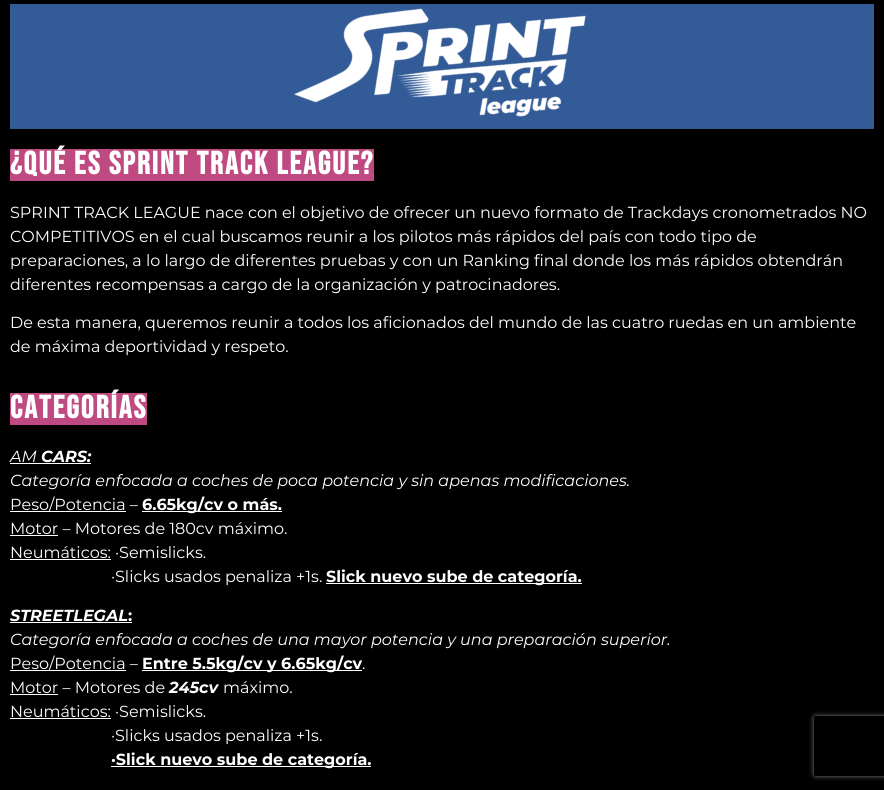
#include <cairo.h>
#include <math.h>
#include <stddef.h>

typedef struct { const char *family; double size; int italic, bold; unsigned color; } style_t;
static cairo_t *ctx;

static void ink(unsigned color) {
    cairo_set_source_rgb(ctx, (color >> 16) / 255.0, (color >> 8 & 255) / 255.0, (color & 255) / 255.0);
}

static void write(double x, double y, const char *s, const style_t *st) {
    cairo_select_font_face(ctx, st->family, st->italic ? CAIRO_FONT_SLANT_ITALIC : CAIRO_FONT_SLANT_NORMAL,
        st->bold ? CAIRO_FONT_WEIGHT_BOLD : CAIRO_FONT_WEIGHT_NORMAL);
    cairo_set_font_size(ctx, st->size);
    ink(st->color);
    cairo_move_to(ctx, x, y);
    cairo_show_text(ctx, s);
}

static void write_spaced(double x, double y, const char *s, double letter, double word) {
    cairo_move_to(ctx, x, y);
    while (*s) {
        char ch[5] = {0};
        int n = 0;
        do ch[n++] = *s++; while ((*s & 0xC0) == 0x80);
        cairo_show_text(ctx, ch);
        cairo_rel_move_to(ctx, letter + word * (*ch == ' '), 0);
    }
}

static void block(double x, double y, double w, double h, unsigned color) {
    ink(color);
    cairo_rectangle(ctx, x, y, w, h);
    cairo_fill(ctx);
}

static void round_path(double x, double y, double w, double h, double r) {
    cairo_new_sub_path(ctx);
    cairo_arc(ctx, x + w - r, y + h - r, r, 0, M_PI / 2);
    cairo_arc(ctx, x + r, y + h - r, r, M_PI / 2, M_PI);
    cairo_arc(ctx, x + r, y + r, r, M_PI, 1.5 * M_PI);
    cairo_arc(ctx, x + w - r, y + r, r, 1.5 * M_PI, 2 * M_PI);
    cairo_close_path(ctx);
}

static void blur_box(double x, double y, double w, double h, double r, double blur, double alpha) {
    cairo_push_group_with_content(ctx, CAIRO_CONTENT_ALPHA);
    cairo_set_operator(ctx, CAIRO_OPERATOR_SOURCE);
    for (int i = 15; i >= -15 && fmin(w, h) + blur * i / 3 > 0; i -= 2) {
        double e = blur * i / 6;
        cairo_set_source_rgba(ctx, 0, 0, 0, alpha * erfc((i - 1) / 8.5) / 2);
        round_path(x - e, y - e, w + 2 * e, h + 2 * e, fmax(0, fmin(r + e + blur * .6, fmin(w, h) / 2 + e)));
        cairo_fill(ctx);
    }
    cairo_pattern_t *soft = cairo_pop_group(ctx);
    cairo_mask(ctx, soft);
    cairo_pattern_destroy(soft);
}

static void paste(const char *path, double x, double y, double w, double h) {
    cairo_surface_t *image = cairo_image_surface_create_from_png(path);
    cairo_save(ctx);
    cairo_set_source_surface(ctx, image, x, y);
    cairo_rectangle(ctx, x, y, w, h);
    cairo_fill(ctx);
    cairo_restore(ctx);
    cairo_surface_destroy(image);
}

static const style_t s1 = {"Montserrat", 16, 0, 0, 0xffffff};
static const style_t s2 = {"Montserrat", 16, 1, 0, 0xffffff};
static const style_t s3 = {"Montserrat", 16, 1, 1, 0xffffff};
static const style_t s4 = {"Montserrat", 16, 0, 1, 0xffffff};

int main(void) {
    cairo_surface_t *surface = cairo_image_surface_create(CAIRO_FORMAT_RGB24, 884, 790);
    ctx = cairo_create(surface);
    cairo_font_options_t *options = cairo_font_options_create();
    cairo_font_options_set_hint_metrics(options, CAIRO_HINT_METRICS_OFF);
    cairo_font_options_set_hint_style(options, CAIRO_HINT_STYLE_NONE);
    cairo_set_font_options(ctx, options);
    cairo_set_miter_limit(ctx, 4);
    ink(0x000000);
    cairo_paint(ctx);
    block(10, 4, 864, 125, 0x335b97);
    paste("pic1.png", 294, 8, 292, 109);
    block(10, 149, 364, 32, 0xbf4a81);
    cairo_select_font_face(ctx, "Bebas Neue", CAIRO_FONT_SLANT_NORMAL, CAIRO_FONT_WEIGHT_BOLD);
    cairo_set_font_size(ctx, 32);
    ink(0xffffff);
    write_spaced(10, 174, "¿Qué es SPRINT TRACK LEAGUE?", 2, 0);
    write(10, 218, "SPRINT TRACK LEAGUE nace con el objetivo de ofrecer un nuevo formato de Trackdays cronometrados NO", &s1);
    write(10, 242, "COMPETITIVOS en el cual buscamos reunir a los pilotos más rápidos del país con todo tipo de", &s1);
    write(10, 266, "preparaciones, a lo largo de diferentes pruebas y con un Ranking final donde los más rápidos obtendrán", &s1);
    write(10, 290, "diferentes recompensas a cargo de la organización y patrocinadores.", &s1);
    write(10, 328, "De esta manera, queremos reunir a todos los aficionados del mundo de las cuatro ruedas en un ambiente", &s1);
    write(10, 352, "de máxima deportividad y respeto.", &s1);
    block(10, 393, 137, 32, 0xbf4a81);
    cairo_select_font_face(ctx, "Bebas Neue", CAIRO_FONT_SLANT_NORMAL, CAIRO_FONT_WEIGHT_BOLD);
    cairo_set_font_size(ctx, 32);
    ink(0xffffff);
    write_spaced(10, 418, "CATEGORÍAS", 2, 0);
    write(10, 462, "AM", &s2);
    write(41, 462, "CARS:", &s3);
    block(10, 463, 81, 1, 0xffffff);
    write(10, 486, "Categoría enfocada a coches de poca potencia y sin apenas modificaciones.", &s2);
    block(10, 511, 116, 1, 0xffffff);
    write(10, 510, "Peso/Potencia –", &s1);
    block(142, 511, 140, 1, 0xffffff);
    write(142, 510, "6.65kg/cv o más.", &s4);
    write(10, 534, "Motor – Motores de 180cv máximo.", &s1);
    block(10, 535, 48, 1, 0xffffff);
    write(10, 558, "Neumáticos: ·Semislicks.", &s1);
    block(10, 559, 101, 1, 0xffffff);
    write(111, 582, "·Slicks usados penaliza +1s.", &s1);
    block(326, 583, 256, 1, 0xffffff);
    write(326, 582, "Slick nuevo sube de categoría.", &s4);
    write(10, 621, "STREETLEGAL", &s3);
    block(10, 622, 122, 1, 0xffffff);
    write(128, 621, ":", &s4);
    write(10, 645, "Categoría enfocada a coches de una mayor potencia y una preparación superior.", &s2);
    block(10, 670, 116, 1, 0xffffff);
    write(10, 669, "Peso/Potencia –", &s1);
    block(142, 670, 220, 1, 0xffffff);
    write(142, 669, "Entre 5.5kg/cv y 6.65kg/cv", &s4);
    write(362, 669, ".", &s1);
    write(10, 693, "Motor – Motores de", &s1);
    block(10, 694, 48, 1, 0xffffff);
    write(169, 693, "245cv", &s3);
    write(223, 693, "máximo.", &s1);
    write(10, 717, "Neumáticos: ·Semislicks.", &s1);
    block(10, 718, 101, 1, 0xffffff);
    write(111, 741, "·Slicks usados penaliza +1s.", &s1);
    block(111, 766, 260, 1, 0xffffff);
    write(111, 765, "·Slick nuevo sube de categoría.", &s4);
    cairo_save(ctx);
    cairo_set_fill_rule(ctx, CAIRO_FILL_RULE_EVEN_ODD);
    cairo_new_path(ctx);
    cairo_move_to(ctx, 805, 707);
    cairo_line_to(ctx, 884, 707);
    cairo_line_to(ctx, 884, 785);
    cairo_line_to(ctx, 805, 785);
    cairo_close_path(ctx);
    cairo_move_to(ctx, 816, 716);
    cairo_line_to(ctx, 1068, 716);
    cairo_curve_to(ctx, 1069, 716, 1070, 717, 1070, 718);
    cairo_line_to(ctx, 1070, 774);
    cairo_curve_to(ctx, 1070, 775, 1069, 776, 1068, 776);
    cairo_line_to(ctx, 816, 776);
    cairo_curve_to(ctx, 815, 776, 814, 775, 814, 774);
    cairo_line_to(ctx, 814, 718);
    cairo_curve_to(ctx, 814, 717, 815, 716, 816, 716);
    cairo_close_path(ctx);
    cairo_clip(ctx);
    ink(0x808080);
    blur_box(814, 716, 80, 60, 2, 2.5, 1);
    cairo_restore(ctx);
    cairo_surface_write_to_png(surface, "screenshot.png");
    cairo_font_options_destroy(options);
    cairo_destroy(ctx);
    cairo_surface_destroy(surface);
    return 0;
}
